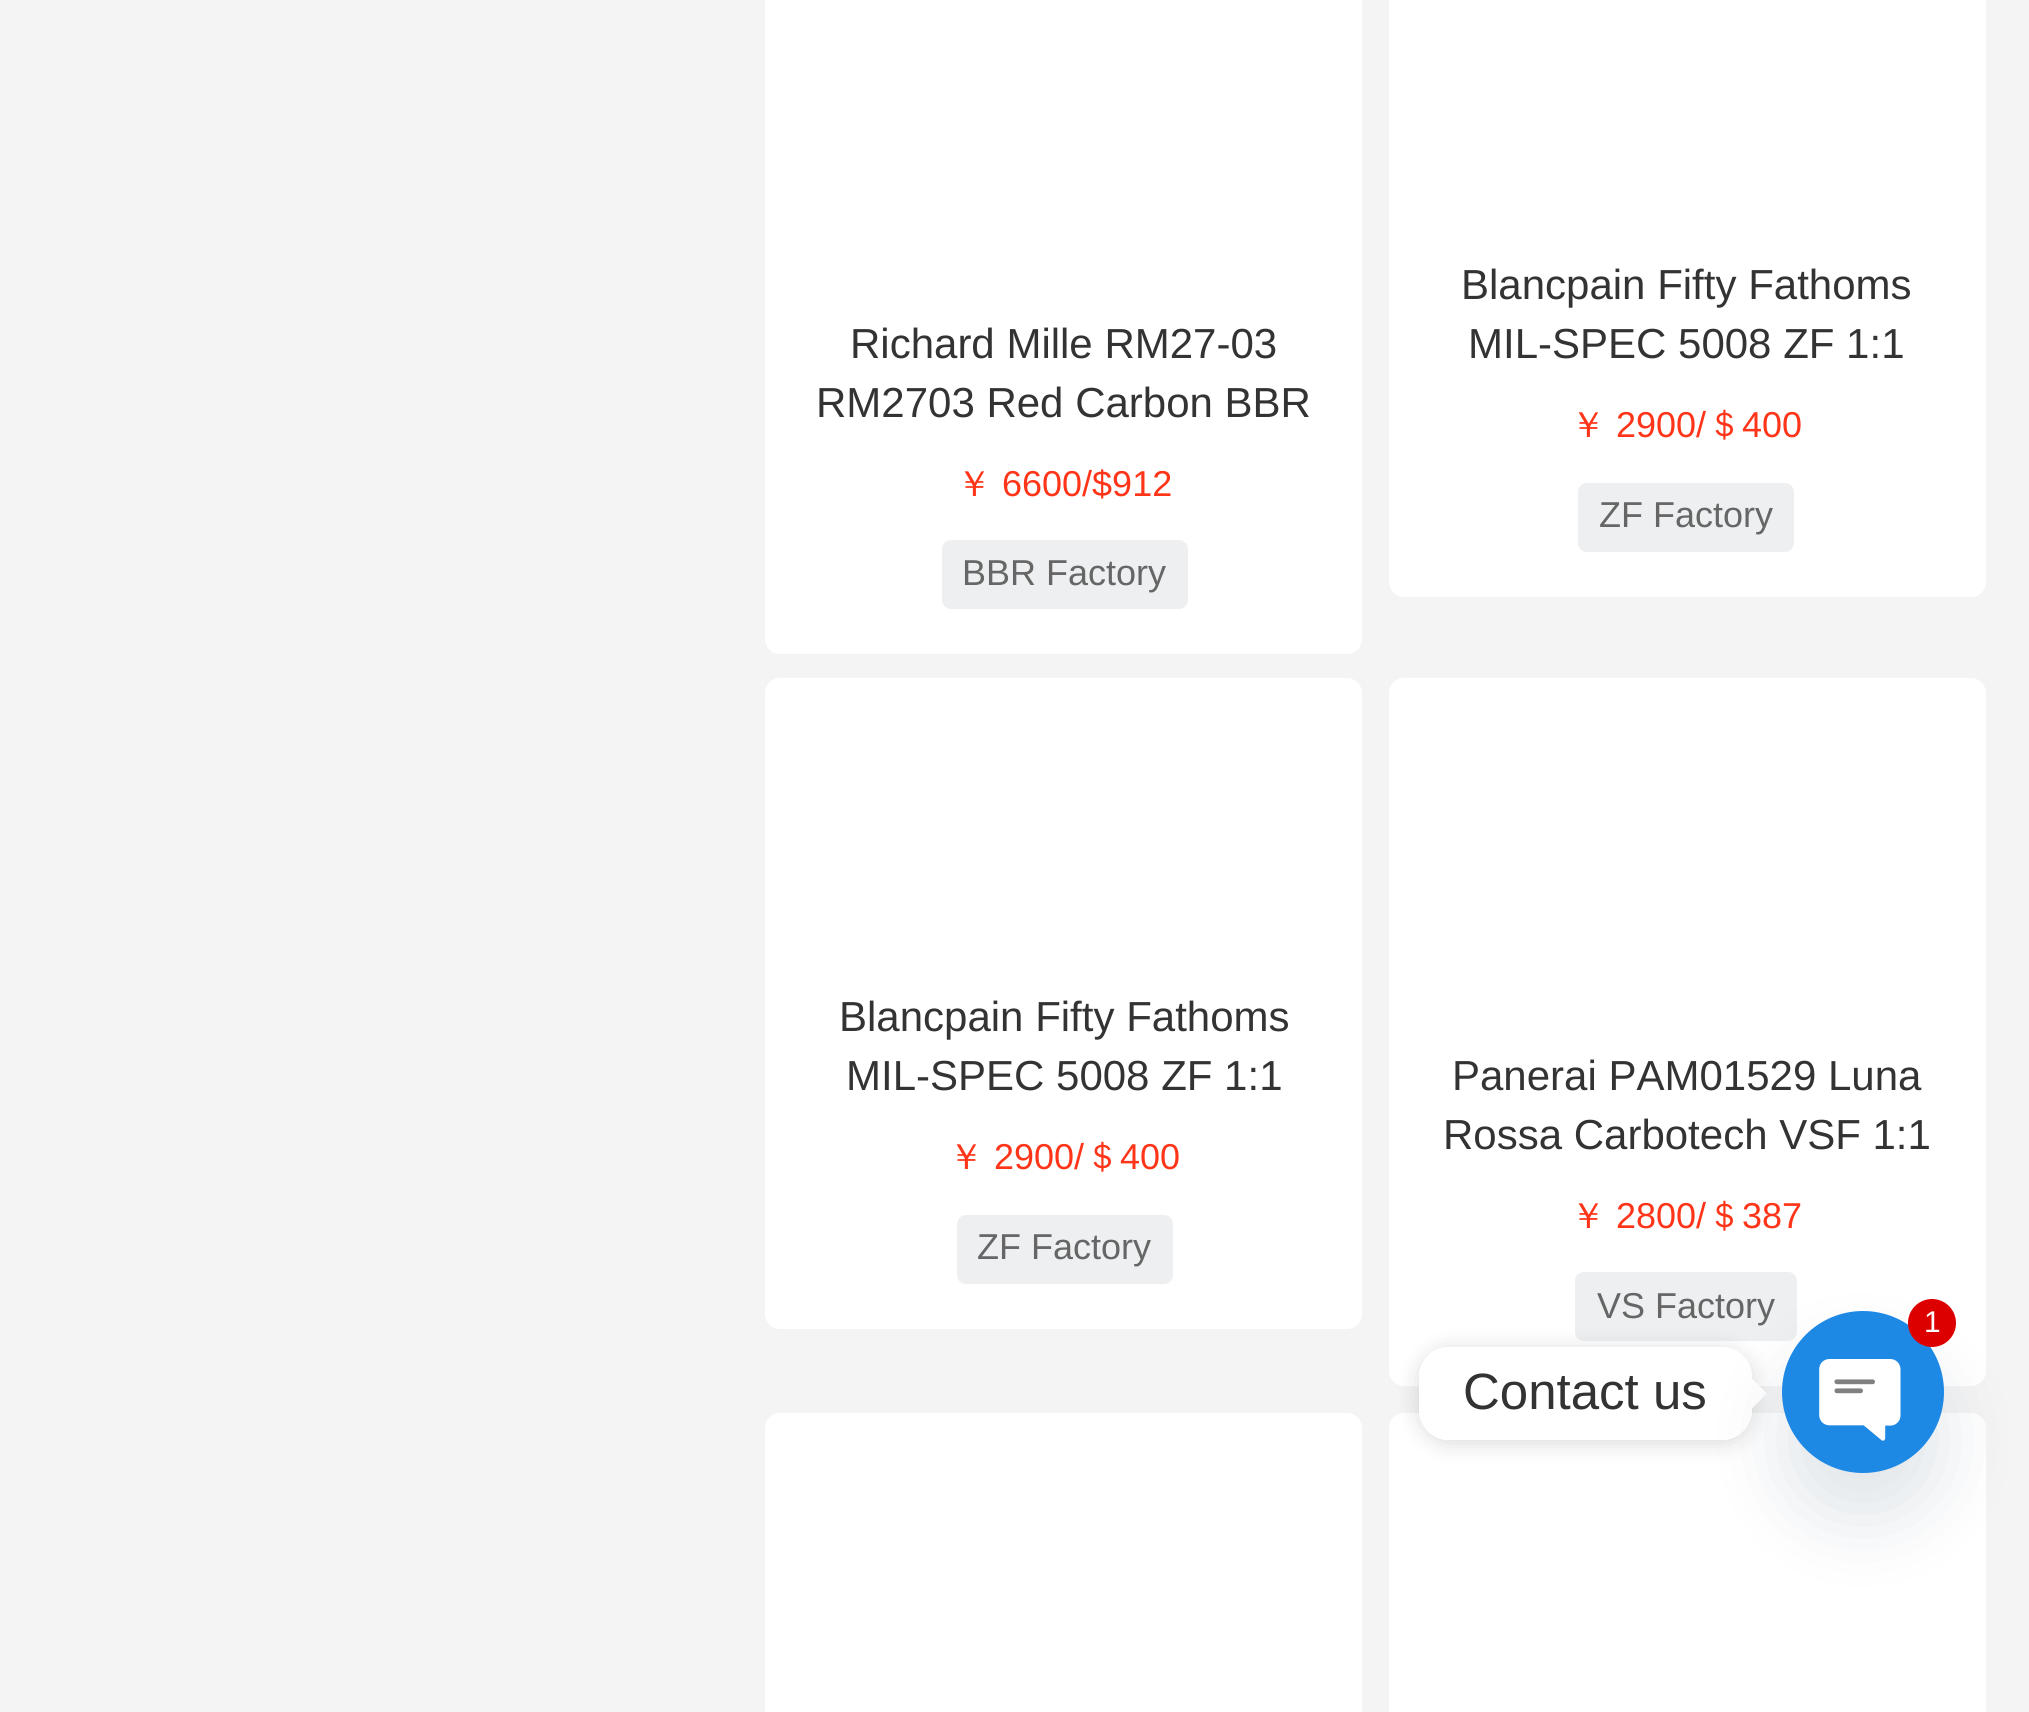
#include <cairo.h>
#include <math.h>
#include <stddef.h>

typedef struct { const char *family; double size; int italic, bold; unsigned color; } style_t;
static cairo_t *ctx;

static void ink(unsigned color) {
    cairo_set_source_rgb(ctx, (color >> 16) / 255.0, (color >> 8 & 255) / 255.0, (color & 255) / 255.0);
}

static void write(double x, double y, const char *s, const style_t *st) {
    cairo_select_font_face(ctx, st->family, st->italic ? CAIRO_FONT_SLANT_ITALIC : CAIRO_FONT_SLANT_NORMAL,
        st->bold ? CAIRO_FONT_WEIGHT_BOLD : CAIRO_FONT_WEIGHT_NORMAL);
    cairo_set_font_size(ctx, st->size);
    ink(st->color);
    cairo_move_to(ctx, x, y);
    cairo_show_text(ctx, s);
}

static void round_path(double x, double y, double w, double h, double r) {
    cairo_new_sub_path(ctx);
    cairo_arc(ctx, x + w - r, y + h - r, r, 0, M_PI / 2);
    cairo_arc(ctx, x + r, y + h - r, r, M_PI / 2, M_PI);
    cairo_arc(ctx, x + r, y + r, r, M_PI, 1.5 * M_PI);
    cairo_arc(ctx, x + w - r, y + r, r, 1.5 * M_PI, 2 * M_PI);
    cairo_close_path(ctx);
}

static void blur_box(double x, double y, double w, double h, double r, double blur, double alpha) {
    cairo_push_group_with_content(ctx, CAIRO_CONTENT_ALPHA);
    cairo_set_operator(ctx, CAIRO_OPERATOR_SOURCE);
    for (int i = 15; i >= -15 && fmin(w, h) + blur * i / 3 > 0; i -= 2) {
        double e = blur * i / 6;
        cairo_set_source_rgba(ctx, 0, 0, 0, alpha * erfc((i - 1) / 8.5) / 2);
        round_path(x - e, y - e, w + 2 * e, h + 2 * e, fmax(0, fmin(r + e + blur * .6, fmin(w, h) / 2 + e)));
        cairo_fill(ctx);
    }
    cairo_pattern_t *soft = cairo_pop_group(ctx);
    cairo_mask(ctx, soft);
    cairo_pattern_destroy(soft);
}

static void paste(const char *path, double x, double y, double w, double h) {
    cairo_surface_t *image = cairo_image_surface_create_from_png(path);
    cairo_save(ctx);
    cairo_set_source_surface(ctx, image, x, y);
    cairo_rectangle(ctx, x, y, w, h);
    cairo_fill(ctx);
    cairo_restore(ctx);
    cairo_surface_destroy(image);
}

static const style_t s1 = {"Liberation Sans", 42, 0, 0, 0x333333};
static const style_t s2 = {"WenQuanYi Zen Hei Medium", 36, 0, 0, 0xff351a};
static const style_t s3 = {"Liberation Sans", 36, 0, 0, 0xff351a};
static const style_t s4 = {"Liberation Sans", 36, 0, 0, 0x666666};
static const style_t s5 = {"Liberation Sans", 30, 0, 0, 0xffffff};
static const style_t s6 = {"Liberation Sans", 51, 0, 0, 0x333333};

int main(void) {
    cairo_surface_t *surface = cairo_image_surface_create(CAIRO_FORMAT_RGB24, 2029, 1712);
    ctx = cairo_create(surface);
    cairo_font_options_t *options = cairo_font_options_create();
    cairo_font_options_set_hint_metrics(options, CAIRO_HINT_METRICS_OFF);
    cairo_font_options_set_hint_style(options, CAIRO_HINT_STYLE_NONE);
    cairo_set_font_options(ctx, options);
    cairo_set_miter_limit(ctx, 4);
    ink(0xf4f4f4);
    cairo_paint(ctx);
    ink(0xffffff);
    round_path(765, -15, 597, 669, 15);
    cairo_fill(ctx);
    write(850, 358, "Richard Mille RM27-03", &s1);
    write(816, 417, "RM2703 Red Carbon BBR", &s1);
    write(956, 496, "￥", &s2);
    write(1002, 496, "6600/$912", &s3);
    ink(0xedeff0);
    round_path(942, 540, 246, 69, 9);
    cairo_fill(ctx);
    write(962, 585, "BBR Factory", &s4);
    ink(0xffffff);
    round_path(1389, -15, 597, 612, 15);
    cairo_fill(ctx);
    write(1461, 299, "Blancpain Fifty Fathoms", &s1);
    write(1468, 358, "MIL-SPEC 5008 ZF 1:1", &s1);
    write(1570, 437, "￥", &s2);
    write(1616, 437, "2900/", &s3);
    write(1706, 437, "＄", &s2);
    write(1742, 437, "400", &s3);
    ink(0xedeff0);
    round_path(1578, 483, 216, 69, 9);
    cairo_fill(ctx);
    write(1599, 527, "ZF Factory", &s4);
    ink(0xffffff);
    round_path(765, 678, 597, 651, 15);
    cairo_fill(ctx);
    write(839, 1031, "Blancpain Fifty Fathoms", &s1);
    write(846, 1090, "MIL-SPEC 5008 ZF 1:1", &s1);
    write(948, 1169, "￥", &s2);
    write(994, 1169, "2900/", &s3);
    write(1084, 1169, "＄", &s2);
    write(1120, 1169, "400", &s3);
    ink(0xedeff0);
    round_path(957, 1215, 216, 69, 9);
    cairo_fill(ctx);
    write(977, 1259, "ZF Factory", &s4);
    ink(0xffffff);
    round_path(1389, 678, 597, 708, 15);
    cairo_fill(ctx);
    write(1452, 1090, "Panerai PAM01529 Luna", &s1);
    write(1443, 1149, "Rossa Carbotech VSF 1:1", &s1);
    write(1570, 1228, "￥", &s2);
    write(1616, 1228, "2800/", &s3);
    write(1706, 1228, "＄", &s2);
    write(1742, 1228, "387", &s3);
    ink(0xedeff0);
    round_path(1575, 1272, 222, 69, 9);
    cairo_fill(ctx);
    write(1597, 1318, "VS Factory", &s4);
    ink(0xffffff);
    round_path(765, 1413, 597, 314, 15);
    cairo_fill(ctx);
    round_path(1389, 1413, 597, 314, 15);
    cairo_fill(ctx);
    cairo_save(ctx);
    cairo_set_fill_rule(ctx, CAIRO_FILL_RULE_EVEN_ODD);
    cairo_new_path(ctx);
    cairo_move_to(ctx, 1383, 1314);
    cairo_line_to(ctx, 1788, 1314);
    cairo_line_to(ctx, 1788, 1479);
    cairo_line_to(ctx, 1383, 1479);
    cairo_close_path(ctx);
    cairo_move_to(ctx, 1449, 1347);
    cairo_line_to(ctx, 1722, 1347);
    cairo_curve_to(ctx, 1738.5, 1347, 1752, 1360.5, 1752, 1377);
    cairo_line_to(ctx, 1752, 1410);
    cairo_curve_to(ctx, 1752, 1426.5, 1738.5, 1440, 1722, 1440);
    cairo_line_to(ctx, 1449, 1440);
    cairo_curve_to(ctx, 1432.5, 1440, 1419, 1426.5, 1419, 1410);
    cairo_line_to(ctx, 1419, 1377);
    cairo_curve_to(ctx, 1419, 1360.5, 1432.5, 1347, 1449, 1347);
    cairo_close_path(ctx);
    cairo_clip(ctx);
    ink(0x000000);
    blur_box(1419, 1350, 333, 93, 30, 11.5, 0.15);
    cairo_restore(ctx);
    round_path(1419, 1347, 333, 93, 30);
    cairo_fill(ctx);
    cairo_new_path(ctx);
    cairo_move_to(ctx, 1752, 1408.5);
    cairo_line_to(ctx, 1752, 1378.5);
    cairo_line_to(ctx, 1767, 1393.5);
    cairo_close_path(ctx);
    cairo_fill(ctx);
    ink(0x49687e);
    blur_box(1782, 1359, 162, 162, 81, 36, 0.16);
    paste("pic1.png", 1782, 1311, 162, 162);
    ink(0xdd0000);
    cairo_arc(ctx, 1932, 1323, 24, 0, 2 * M_PI);
    cairo_fill(ctx);
    write(1924, 1332, "1", &s5);
    write(1463, 1409, "Contact us", &s6);
    cairo_surface_write_to_png(surface, "screenshot.png");
    cairo_font_options_destroy(options);
    cairo_destroy(ctx);
    cairo_surface_destroy(surface);
    return 0;
}
